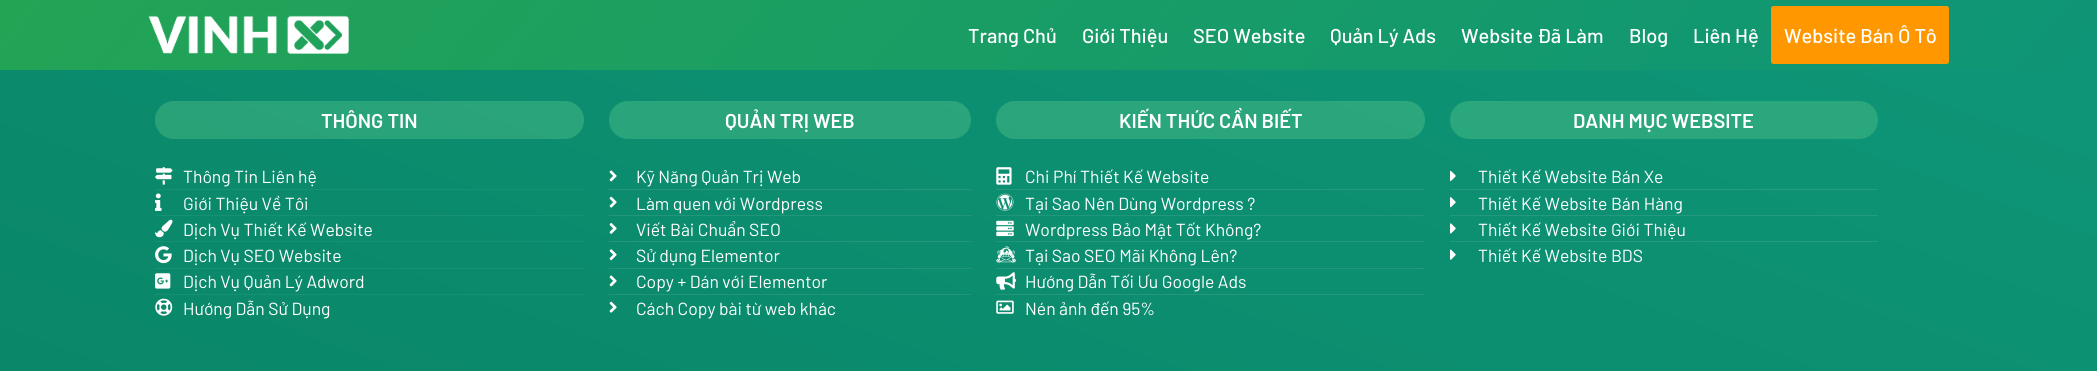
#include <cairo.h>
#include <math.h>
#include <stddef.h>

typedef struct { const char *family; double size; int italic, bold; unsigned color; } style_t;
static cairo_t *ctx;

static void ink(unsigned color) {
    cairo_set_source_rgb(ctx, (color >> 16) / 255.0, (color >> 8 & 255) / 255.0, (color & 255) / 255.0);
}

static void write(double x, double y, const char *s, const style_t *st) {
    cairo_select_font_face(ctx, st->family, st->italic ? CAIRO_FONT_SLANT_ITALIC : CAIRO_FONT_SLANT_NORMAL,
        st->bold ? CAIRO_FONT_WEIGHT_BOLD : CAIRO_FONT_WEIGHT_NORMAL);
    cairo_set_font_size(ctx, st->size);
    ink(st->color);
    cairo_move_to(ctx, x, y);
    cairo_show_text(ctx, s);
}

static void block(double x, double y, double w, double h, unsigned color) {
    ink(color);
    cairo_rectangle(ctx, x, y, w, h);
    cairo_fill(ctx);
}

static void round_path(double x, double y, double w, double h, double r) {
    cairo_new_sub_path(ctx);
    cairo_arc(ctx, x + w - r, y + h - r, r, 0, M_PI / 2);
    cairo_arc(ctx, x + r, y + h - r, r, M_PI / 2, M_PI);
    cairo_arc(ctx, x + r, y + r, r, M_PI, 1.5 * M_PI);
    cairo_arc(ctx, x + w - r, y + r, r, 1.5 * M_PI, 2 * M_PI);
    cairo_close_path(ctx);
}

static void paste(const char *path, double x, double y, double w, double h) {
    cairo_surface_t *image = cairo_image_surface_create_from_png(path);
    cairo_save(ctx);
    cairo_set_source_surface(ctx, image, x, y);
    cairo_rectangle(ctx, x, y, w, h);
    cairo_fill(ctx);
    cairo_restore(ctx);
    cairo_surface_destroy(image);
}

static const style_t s1 = {"Barlow Medium", 20, 0, 0, 0xffffff};
static const style_t s2 = {"Barlow SemiBold", 20, 0, 0, 0xffffff};
static const style_t s3 = {"Barlow", 17.5, 0, 0, 0xffffff};

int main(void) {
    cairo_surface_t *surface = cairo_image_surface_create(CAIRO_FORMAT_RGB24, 2097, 371);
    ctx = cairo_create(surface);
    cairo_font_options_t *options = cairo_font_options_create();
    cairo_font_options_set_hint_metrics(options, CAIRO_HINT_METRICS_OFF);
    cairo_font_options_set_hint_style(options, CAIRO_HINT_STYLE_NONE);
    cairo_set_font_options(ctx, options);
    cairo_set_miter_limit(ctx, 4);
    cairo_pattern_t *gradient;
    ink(0xffffff);
    cairo_paint(ctx);
    gradient = cairo_pattern_create_linear(416, -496, 1681, 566);
    cairo_pattern_add_color_stop_rgba(gradient, 0, 0.137, 0.643, 0.333, 1);
    cairo_pattern_add_color_stop_rgba(gradient, 1, 0.055, 0.584, 0.467, 1);
    cairo_set_source(ctx, gradient);
    cairo_pattern_destroy(gradient);
    cairo_rectangle(ctx, 0, 0, 2097, 70);
    cairo_fill(ctx);
    paste("pic1.png", 148, 15, 201, 39);
    write(968, 43, "Trang Chủ", &s1);
    write(1082, 43, "Giới Thiệu", &s1);
    write(1193, 43, "SEO Website", &s1);
    write(1330, 43, "Quản Lý Ads", &s1);
    write(1461, 43, "Website Đã Làm", &s1);
    write(1629, 43, "Blog", &s1);
    write(1693, 43, "Liên Hệ", &s1);
    ink(0xff9800);
    round_path(1771, 6, 178, 58, 2.5);
    cairo_fill(ctx);
    write(1784, 43, "Website Bán Ô Tô", &s1);
    gradient = cairo_pattern_create_linear(1223, -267, 875, 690);
    cairo_pattern_add_color_stop_rgba(gradient, 0, 0.055, 0.584, 0.467, 1);
    cairo_pattern_add_color_stop_rgba(gradient, 1, 0.039, 0.529, 0.408, 1);
    cairo_set_source(ctx, gradient);
    cairo_pattern_destroy(gradient);
    cairo_rectangle(ctx, 0, 70, 2097, 301);
    cairo_fill(ctx);
    gradient = cairo_pattern_create_linear(1223, -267, 875, 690);
    cairo_pattern_add_color_stop_rgba(gradient, 0, 0.145, 0.616, 0.51, 1);
    cairo_pattern_add_color_stop_rgba(gradient, 1, 0.129, 0.565, 0.459, 1);
    cairo_set_source(ctx, gradient);
    cairo_pattern_destroy(gradient);
    cairo_rectangle(ctx, 1450, 241, 428, 1);
    cairo_fill(ctx);
    cairo_rectangle(ctx, 1450, 215, 428, 1);
    cairo_fill(ctx);
    cairo_rectangle(ctx, 996, 268, 429, 1);
    cairo_fill(ctx);
    cairo_set_source_rgba(ctx, 0.408, 0.827, 0.569, 0.33);
    round_path(155, 101, 429, 38, 19);
    cairo_fill(ctx);
    write(321, 128, "THÔNG TIN", &s2);
    paste("pic2.png", 155, 167, 18, 18);
    write(183, 183, "Thông Tin Liên hệ", &s3);
    block(155, 189, 429, 1, 0x169272);
    paste("pic3.png", 155, 193, 7, 18);
    write(183, 210, "Giới Thiệu Về Tôi", &s3);
    block(155, 215, 429, 1, 0x169272);
    paste("pic4.png", 155, 219, 18, 19);
    write(183, 236, "Dịch Vụ Thiết Kế Website", &s3);
    block(155, 241, 429, 1, 0x169271);
    paste("pic5.png", 155, 246, 17, 18);
    write(183, 262, "Dịch Vụ SEO Website", &s3);
    block(155, 268, 429, 1, 0x169171);
    paste("pic6.png", 155, 273, 16, 16);
    write(183, 288, "Dịch Vụ Quản Lý Adword", &s3);
    block(155, 294, 429, 1, 0x169171);
    paste("pic7.png", 155, 298, 18, 18);
    write(183, 315, "Hướng Dẫn Sử Dụng", &s3);
    cairo_set_source_rgba(ctx, 0.408, 0.827, 0.569, 0.33);
    round_path(609, 101, 362, 38, 19);
    cairo_fill(ctx);
    write(725, 128, "QUẢN TRỊ WEB", &s2);
    paste("pic8.png", 609, 170, 8, 12);
    write(636, 183, "Kỹ Năng Quản Trị Web", &s3);
    block(609, 189, 362, 1, 0x23967b);
    paste("pic9.png", 609, 196, 8, 12);
    write(636, 210, "Làm quen với Wordpress", &s3);
    block(609, 215, 362, 1, 0x23967a);
    paste("pic10.png", 609, 223, 8, 11);
    write(636, 236, "Viết Bài Chuẩn SEO", &s3);
    block(609, 241, 362, 1, 0x23957a);
    paste("pic11.png", 609, 249, 8, 12);
    write(636, 262, "Sử dụng Elementor", &s3);
    block(609, 268, 362, 1, 0x22957a);
    paste("pic12.png", 609, 275, 8, 12);
    write(636, 288, "Copy + Dán với Elementor", &s3);
    block(609, 294, 362, 1, 0x229579);
    paste("pic13.png", 609, 301, 8, 12);
    write(636, 315, "Cách Copy bài từ web khác", &s3);
    cairo_set_source_rgba(ctx, 0.408, 0.827, 0.569, 0.33);
    round_path(996, 101, 429, 38, 19);
    cairo_fill(ctx);
    write(1119, 128, "KIẾN THỨC CẦN BIẾT", &s2);
    paste("pic14.png", 996, 167, 16, 18);
    write(1025, 183, "Chi Phí Thiết Kế Website", &s3);
    block(996, 189, 429, 1, 0x23987d);
    paste("pic15.png", 996, 193, 18, 18);
    write(1025, 210, "Tại Sao Nên Dùng Wordpress ?", &s3);
    block(996, 215, 429, 1, 0x23977c);
    paste("pic16.png", 996, 220, 18, 17);
    write(1025, 236, "Wordpress Bảo Mật Tốt Không?", &s3);
    block(996, 241, 429, 1, 0x23977c);
    paste("pic17.png", 996, 246, 20, 17);
    write(1025, 262, "Tại Sao SEO Mãi Không Lên?", &s3);
    paste("pic18.png", 996, 272, 20, 18);
    write(1025, 288, "Hướng Dẫn Tối Ưu Google Ads", &s3);
    block(996, 294, 429, 1, 0x23967b);
    paste("pic19.png", 996, 300, 18, 14);
    write(1025, 315, "Nén ảnh đến 95%", &s3);
    ink(0x2ba77d);
    round_path(1450, 101, 428, 38, 19);
    cairo_fill(ctx);
    write(1573, 128, "DANH MỤC WEBSITE", &s2);
    paste("pic20.png", 1450, 170, 6, 11);
    write(1478, 183, "Thiết Kế Website Bán Xe", &s3);
    block(1450, 189, 428, 1, 0x249a7f);
    paste("pic21.png", 1450, 197, 6, 11);
    write(1478, 210, "Thiết Kế Website Bán Hàng", &s3);
    paste("pic22.png", 1450, 223, 6, 11);
    write(1478, 236, "Thiết Kế Website Giới Thiệu", &s3);
    paste("pic23.png", 1450, 249, 6, 11);
    write(1478, 262, "Thiết Kế Website BDS", &s3);
    cairo_surface_write_to_png(surface, "screenshot.png");
    cairo_font_options_destroy(options);
    cairo_destroy(ctx);
    cairo_surface_destroy(surface);
    return 0;
}
